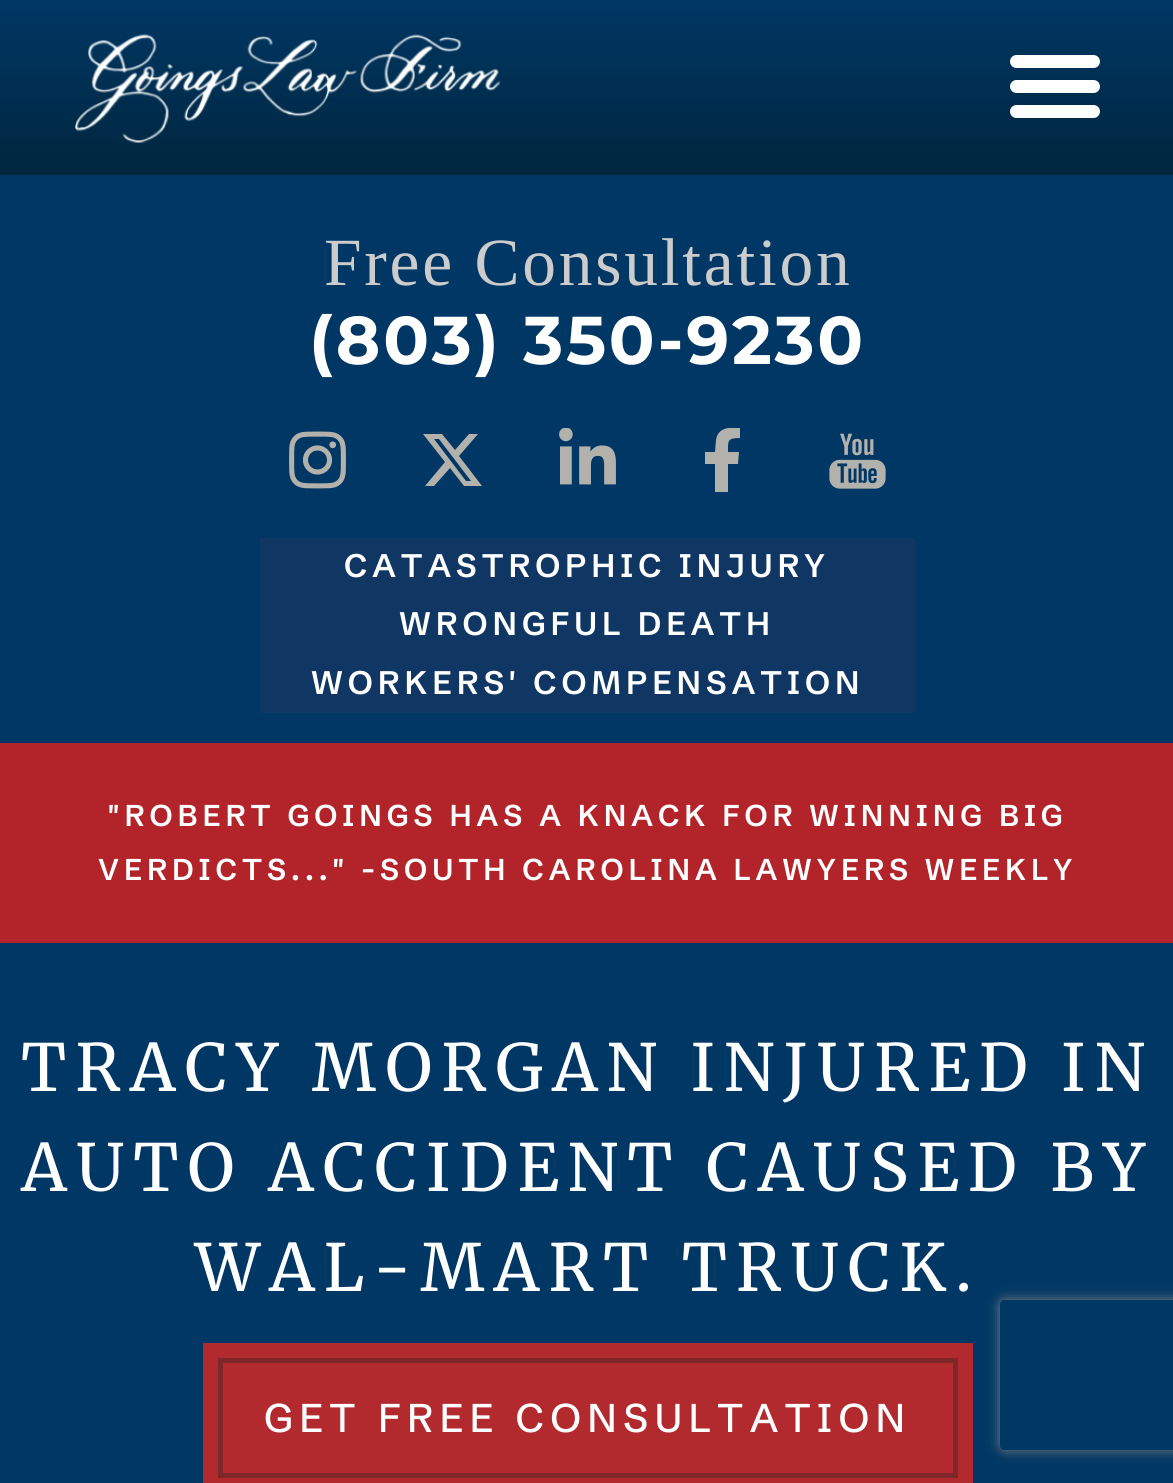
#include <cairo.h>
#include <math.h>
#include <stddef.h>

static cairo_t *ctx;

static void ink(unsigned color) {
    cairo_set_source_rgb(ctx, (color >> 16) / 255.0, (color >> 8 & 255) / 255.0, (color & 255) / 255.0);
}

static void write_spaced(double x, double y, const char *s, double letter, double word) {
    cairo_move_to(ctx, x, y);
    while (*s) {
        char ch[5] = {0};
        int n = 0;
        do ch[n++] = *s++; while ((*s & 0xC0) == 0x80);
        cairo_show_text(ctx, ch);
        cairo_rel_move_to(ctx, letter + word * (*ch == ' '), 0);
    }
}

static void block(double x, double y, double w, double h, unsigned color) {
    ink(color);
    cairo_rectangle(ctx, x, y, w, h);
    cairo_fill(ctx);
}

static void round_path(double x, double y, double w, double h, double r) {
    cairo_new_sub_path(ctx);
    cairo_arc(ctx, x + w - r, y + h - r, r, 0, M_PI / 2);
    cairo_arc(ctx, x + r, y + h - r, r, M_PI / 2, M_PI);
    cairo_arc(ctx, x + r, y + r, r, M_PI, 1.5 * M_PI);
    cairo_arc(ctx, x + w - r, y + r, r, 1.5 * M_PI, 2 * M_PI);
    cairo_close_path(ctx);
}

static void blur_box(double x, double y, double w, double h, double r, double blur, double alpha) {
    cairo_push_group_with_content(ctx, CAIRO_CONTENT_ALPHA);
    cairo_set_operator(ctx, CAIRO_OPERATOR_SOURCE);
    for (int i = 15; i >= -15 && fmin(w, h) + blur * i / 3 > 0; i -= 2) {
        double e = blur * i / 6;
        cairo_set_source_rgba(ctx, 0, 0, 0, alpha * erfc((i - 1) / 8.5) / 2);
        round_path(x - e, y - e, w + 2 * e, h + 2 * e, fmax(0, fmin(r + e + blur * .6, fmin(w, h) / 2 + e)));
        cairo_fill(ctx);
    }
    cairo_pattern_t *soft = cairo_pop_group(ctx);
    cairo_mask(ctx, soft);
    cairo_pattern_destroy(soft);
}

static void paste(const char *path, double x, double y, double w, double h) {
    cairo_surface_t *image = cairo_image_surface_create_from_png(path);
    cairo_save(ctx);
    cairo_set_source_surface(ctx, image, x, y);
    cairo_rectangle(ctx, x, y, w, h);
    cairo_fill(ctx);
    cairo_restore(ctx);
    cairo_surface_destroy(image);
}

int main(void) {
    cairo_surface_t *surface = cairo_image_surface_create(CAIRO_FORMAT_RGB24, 1173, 1483);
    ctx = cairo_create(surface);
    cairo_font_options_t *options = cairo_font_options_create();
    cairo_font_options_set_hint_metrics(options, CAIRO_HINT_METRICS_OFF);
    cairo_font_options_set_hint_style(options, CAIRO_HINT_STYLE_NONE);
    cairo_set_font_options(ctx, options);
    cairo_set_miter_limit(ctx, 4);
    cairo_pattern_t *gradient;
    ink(0x003764);
    cairo_paint(ctx);
    gradient = cairo_pattern_create_linear(588, 0, 588, 175);
    cairo_pattern_add_color_stop_rgba(gradient, 0, 0, 0.216, 0.392, 1);
    cairo_pattern_add_color_stop_rgba(gradient, 1, 0, 0.149, 0.243, 1);
    cairo_set_source(ctx, gradient);
    cairo_pattern_destroy(gradient);
    cairo_rectangle(ctx, 0, 12, 1173, 163);
    cairo_fill(ctx);
    paste("pic1.png", 75, 34, 425, 109);
    ink(0xffffff);
    round_path(1010, 55, 90, 13, 6.5);
    cairo_fill(ctx);
    round_path(1010, 80, 90, 13, 6.5);
    cairo_fill(ctx);
    round_path(1010, 105, 90, 13, 6.5);
    cairo_fill(ctx);
    cairo_select_font_face(ctx, "Liberation Serif", CAIRO_FONT_SLANT_NORMAL, CAIRO_FONT_WEIGHT_NORMAL);
    cairo_set_font_size(ctx, 67.5);
    ink(0xcccccc);
    write_spaced(324, 285, "Free Consultation", 2.75, 0);
    cairo_select_font_face(ctx, "Montserrat", CAIRO_FONT_SLANT_NORMAL, CAIRO_FONT_WEIGHT_BOLD);
    ink(0xffffff);
    write_spaced(309, 364, "(803) 350-9230", 2.75, 0);
    paste("pic2.png", 289, 431, 57, 58);
    ink(0xb3b1ac);
    cairo_new_path(ctx);
    cairo_move_to(ctx, 469, 434);
    cairo_line_to(ctx, 478, 434);
    cairo_line_to(ctx, 459, 456);
    cairo_line_to(ctx, 482, 486);
    cairo_line_to(ctx, 464, 486);
    cairo_line_to(ctx, 450, 468);
    cairo_line_to(ctx, 434, 486);
    cairo_line_to(ctx, 425, 486);
    cairo_line_to(ctx, 445, 462);
    cairo_line_to(ctx, 423, 434);
    cairo_line_to(ctx, 442, 434);
    cairo_line_to(ctx, 455, 450);
    cairo_close_path(ctx);
    cairo_move_to(ctx, 466, 481);
    cairo_line_to(ctx, 471, 481);
    cairo_line_to(ctx, 439, 439);
    cairo_line_to(ctx, 434, 439);
    cairo_close_path(ctx);
    cairo_fill(ctx);
    paste("pic3.png", 559, 428, 57, 57);
    cairo_save(ctx);
    cairo_rectangle(ctx, 690, 428, 65, 65);
    cairo_clip(ctx);
    cairo_new_path(ctx);
    cairo_move_to(ctx, 738, 464);
    cairo_line_to(ctx, 739, 452);
    cairo_line_to(ctx, 728, 452);
    cairo_curve_to(ctx, 728, 441, 727, 438, 740, 438);
    cairo_line_to(ctx, 740, 428);
    cairo_curve_to(ctx, 730, 427, 718, 427, 716, 440);
    cairo_line_to(ctx, 715, 452);
    cairo_line_to(ctx, 705, 452);
    cairo_line_to(ctx, 705, 464);
    cairo_line_to(ctx, 715, 464);
    cairo_line_to(ctx, 715, 492);
    cairo_line_to(ctx, 728, 492);
    cairo_line_to(ctx, 728, 464);
    cairo_close_path(ctx);
    cairo_fill(ctx);
    cairo_restore(ctx);
    paste("pic4.png", 829, 433, 57, 56);
    block(260, 538, 655, 175, 0x103763);
    cairo_select_font_face(ctx, "Schibsted Grotesk SemiBold", CAIRO_FONT_SLANT_NORMAL, CAIRO_FONT_WEIGHT_NORMAL);
    cairo_set_font_size(ctx, 32.5);
    ink(0xffffff);
    write_spaced(344, 577, "CATASTROPHIC INJURY", 5, 0);
    write_spaced(399, 635, "WRONGFUL DEATH", 5, 0);
    write_spaced(311, 694, "WORKERS' COMPENSATION", 5, 0);
    block(0, 743, 1173, 200, 0xb3242a);
    cairo_set_font_size(ctx, 30);
    ink(0xffffff);
    write_spaced(108, 826, "\"ROBERT GOINGS HAS A KNACK FOR WINNING BIG", 5, 0);
    write_spaced(98, 880, "VERDICTS...\" -SOUTH CAROLINA LAWYERS WEEKLY", 5, 0);
    cairo_select_font_face(ctx, "Merriweather", CAIRO_FONT_SLANT_NORMAL, CAIRO_FONT_WEIGHT_NORMAL);
    cairo_set_font_size(ctx, 65);
    write_spaced(21, 1091, "TRACY MORGAN INJURED IN", 9.1, 0);
    write_spaced(21, 1191, "AUTO ACCIDENT CAUSED BY", 9.1, 0);
    write_spaced(195, 1291, "WAL-MART TRUCK.", 9.1, 0);
    block(203, 1343, 770, 140, 0xb2292e);
    cairo_rectangle(ctx, 220.5, 1360.5, 735, 115);
    ink(0x7f2629);
    cairo_set_line_width(ctx, 5);
    cairo_stroke(ctx);
    cairo_select_font_face(ctx, "Schibsted Grotesk Medium", CAIRO_FONT_SLANT_NORMAL, CAIRO_FONT_WEIGHT_NORMAL);
    cairo_set_font_size(ctx, 40);
    ink(0xffffff);
    write_spaced(264, 1432, "GET FREE CONSULTATION", 6.4, 0);
    cairo_save(ctx);
    cairo_set_fill_rule(ctx, CAIRO_FILL_RULE_EVEN_ODD);
    cairo_new_path(ctx);
    cairo_move_to(ctx, 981, 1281);
    cairo_line_to(ctx, 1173, 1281);
    cairo_line_to(ctx, 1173, 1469);
    cairo_line_to(ctx, 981, 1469);
    cairo_close_path(ctx);
    cairo_move_to(ctx, 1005, 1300);
    cairo_line_to(ctx, 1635, 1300);
    cairo_curve_to(ctx, 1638, 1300, 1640, 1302, 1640, 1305);
    cairo_line_to(ctx, 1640, 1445);
    cairo_curve_to(ctx, 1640, 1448, 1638, 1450, 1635, 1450);
    cairo_line_to(ctx, 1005, 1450);
    cairo_curve_to(ctx, 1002, 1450, 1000, 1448, 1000, 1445);
    cairo_line_to(ctx, 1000, 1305);
    cairo_curve_to(ctx, 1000, 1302, 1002, 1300, 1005, 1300);
    cairo_close_path(ctx);
    cairo_clip(ctx);
    ink(0x808080);
    blur_box(1000, 1300, 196, 150, 5, 6, 1);
    cairo_restore(ctx);
    cairo_surface_write_to_png(surface, "screenshot.png");
    cairo_font_options_destroy(options);
    cairo_destroy(ctx);
    cairo_surface_destroy(surface);
    return 0;
}
